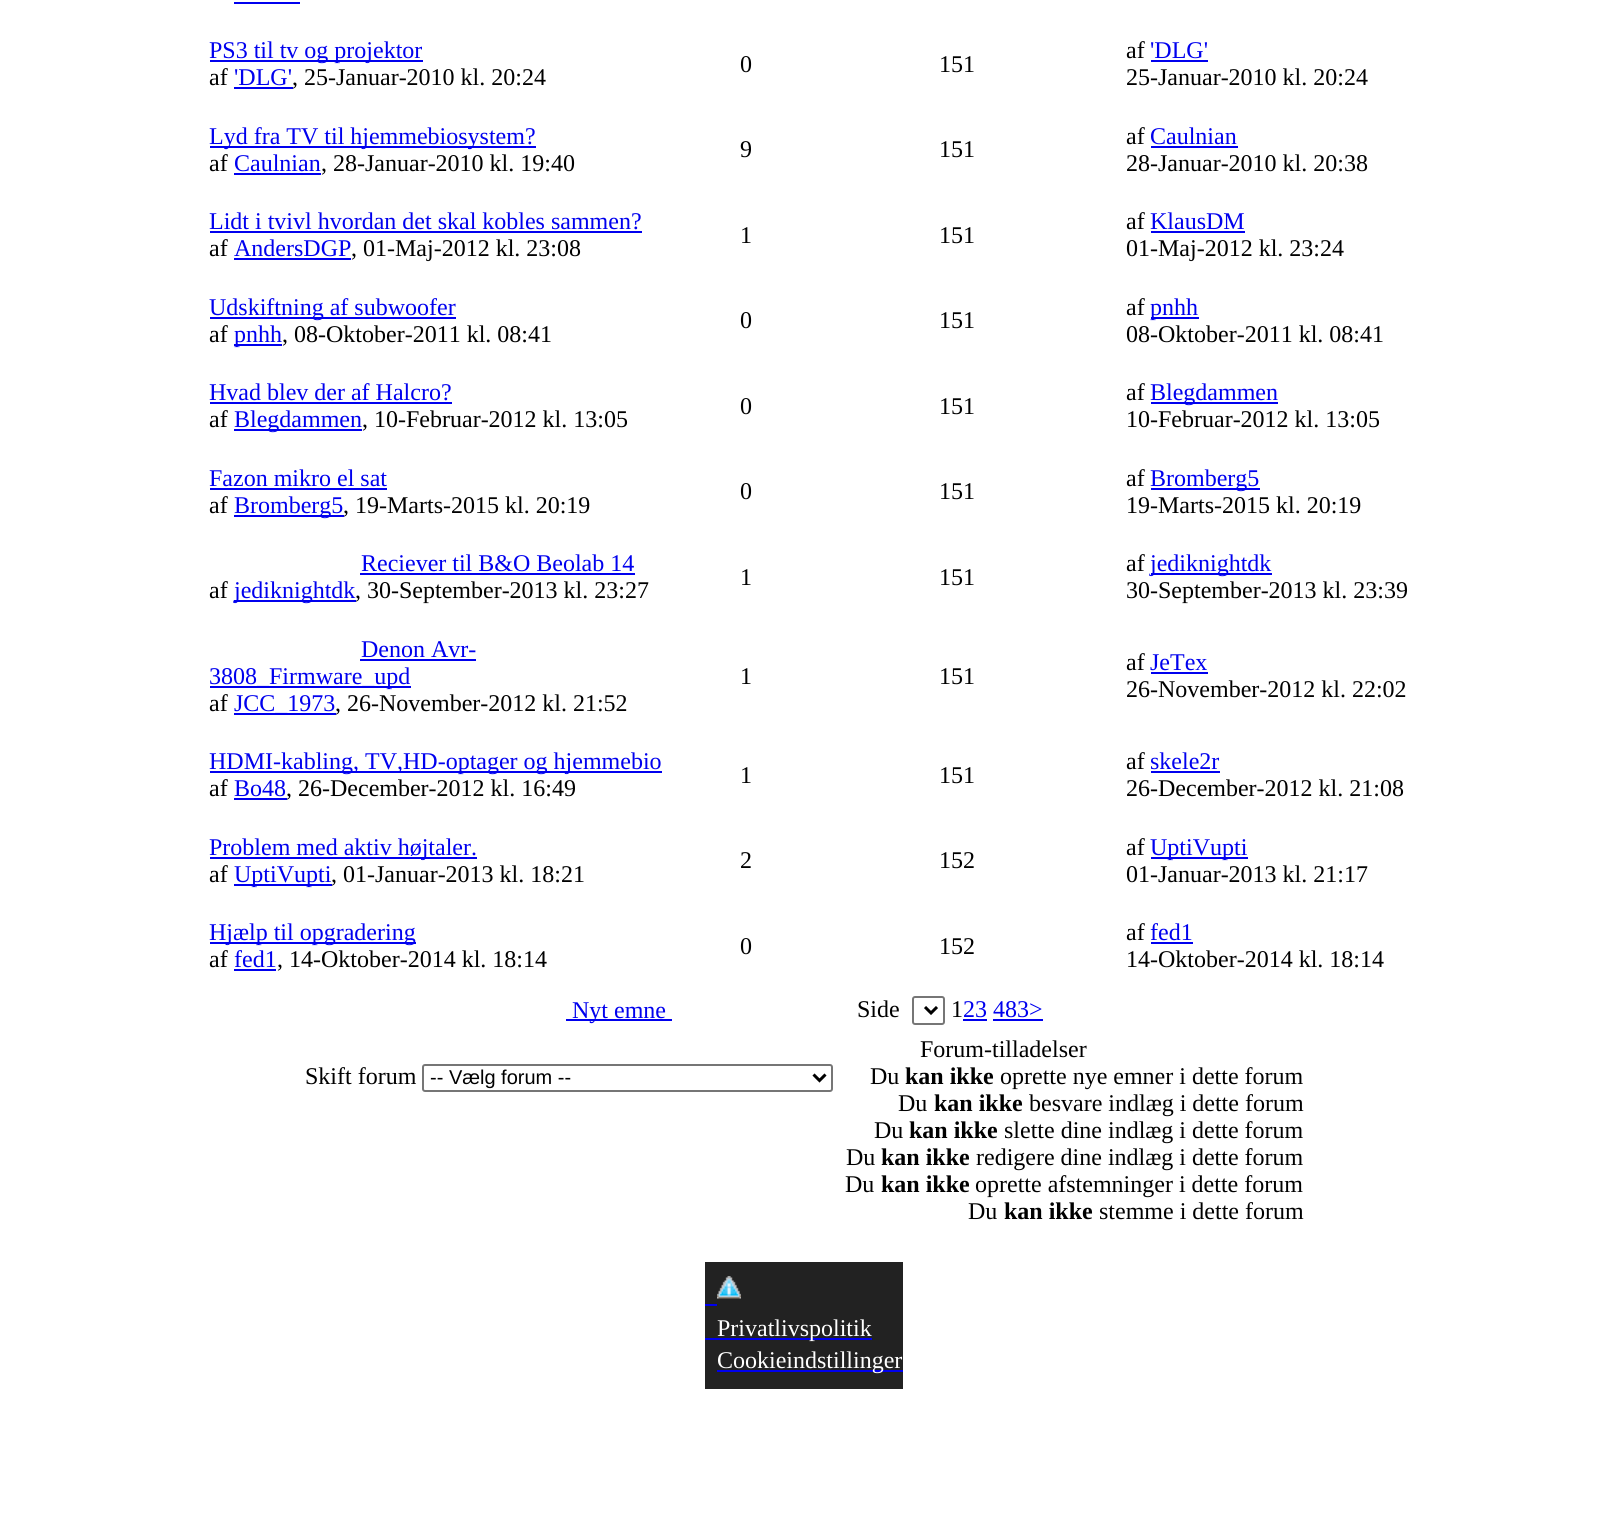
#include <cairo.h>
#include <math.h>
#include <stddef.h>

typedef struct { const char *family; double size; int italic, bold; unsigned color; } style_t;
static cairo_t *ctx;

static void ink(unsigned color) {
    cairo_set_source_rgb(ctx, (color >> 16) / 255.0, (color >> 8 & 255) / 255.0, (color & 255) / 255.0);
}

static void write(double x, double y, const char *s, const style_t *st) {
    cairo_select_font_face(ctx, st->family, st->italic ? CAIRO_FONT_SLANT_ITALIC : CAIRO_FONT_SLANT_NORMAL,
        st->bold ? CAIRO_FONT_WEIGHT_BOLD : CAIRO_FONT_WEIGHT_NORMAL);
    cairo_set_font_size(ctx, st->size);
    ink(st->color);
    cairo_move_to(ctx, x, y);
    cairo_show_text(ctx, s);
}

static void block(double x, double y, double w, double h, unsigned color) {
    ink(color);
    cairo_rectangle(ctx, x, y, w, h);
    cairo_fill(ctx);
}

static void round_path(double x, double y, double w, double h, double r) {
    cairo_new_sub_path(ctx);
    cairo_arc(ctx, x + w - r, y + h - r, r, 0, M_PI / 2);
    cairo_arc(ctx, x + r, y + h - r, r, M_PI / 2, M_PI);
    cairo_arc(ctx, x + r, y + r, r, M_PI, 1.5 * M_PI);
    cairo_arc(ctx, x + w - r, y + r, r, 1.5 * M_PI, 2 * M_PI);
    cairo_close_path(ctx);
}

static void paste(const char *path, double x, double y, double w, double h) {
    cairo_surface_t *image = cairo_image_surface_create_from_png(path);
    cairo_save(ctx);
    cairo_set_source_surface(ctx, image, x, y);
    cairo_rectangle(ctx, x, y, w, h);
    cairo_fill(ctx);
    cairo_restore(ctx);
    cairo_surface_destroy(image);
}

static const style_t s1 = {"Liberation Serif", 24, 0, 0, 0x0000ee};
static const style_t s2 = {"Liberation Serif", 24, 0, 0, 0x000000};
static const style_t s3 = {"Liberation Sans", 20, 0, 0, 0x000000};
static const style_t s4 = {"Liberation Serif", 24, 0, 1, 0x000000};
static const style_t s5 = {"Liberation Serif", 24, 0, 0, 0xffffff};

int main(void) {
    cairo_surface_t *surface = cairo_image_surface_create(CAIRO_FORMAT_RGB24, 1608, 1527);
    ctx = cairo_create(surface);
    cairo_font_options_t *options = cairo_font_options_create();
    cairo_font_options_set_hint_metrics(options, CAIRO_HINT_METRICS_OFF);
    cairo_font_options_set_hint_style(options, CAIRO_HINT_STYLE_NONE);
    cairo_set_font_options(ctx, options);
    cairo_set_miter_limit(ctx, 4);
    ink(0xffffff);
    cairo_paint(ctx);
    block(234, 2, 66, 2, 0x0000ee);
    block(210, 60, 213, 2, 0x0000ee);
    write(209, 58, "PS3 til tv og projektor", &s1);
    write(209, 85, "af", &s2);
    write(234, 85, "'DLG'", &s1);
    block(234, 87, 59, 2, 0x0000ee);
    write(292, 85, ", 25-Januar-2010 kl. 20:24", &s2);
    write(740, 72, "0", &s2);
    write(939, 72, "151", &s2);
    write(1126, 58, "af", &s2);
    write(1150, 58, "'DLG'", &s1);
    block(1151, 60, 57, 2, 0x0000ee);
    write(1126, 85, "25-Januar-2010 kl. 20:24", &s2);
    block(210, 146, 326, 2, 0x0000ee);
    write(209, 144, "Lyd fra TV til hjemmebiosystem?", &s1);
    write(209, 171, "af", &s2);
    write(234, 171, "Caulnian", &s1);
    write(321, 171, ", 28-Januar-2010 kl. 19:40", &s2);
    block(234, 173, 87, 2, 0x0000ee);
    write(740, 157, "9", &s2);
    write(939, 157, "151", &s2);
    write(1126, 144, "af", &s2);
    write(1150, 144, "Caulnian", &s1);
    block(1151, 146, 87, 2, 0x0000ee);
    write(1126, 171, "28-Januar-2010 kl. 20:38", &s2);
    write(209, 229, "Lidt i tvivl hvordan det skal kobles sammen?", &s1);
    block(210, 231, 432, 2, 0x0000ee);
    write(209, 256, "af", &s2);
    write(234, 256, "AndersDGP", &s1);
    write(351, 256, ", 01-Maj-2012 kl. 23:08", &s2);
    block(234, 258, 117, 2, 0x0000ee);
    write(740, 243, "1", &s2);
    write(939, 243, "151", &s2);
    write(1126, 229, "af", &s2);
    write(1150, 229, "KlausDM", &s1);
    block(1151, 231, 94, 2, 0x0000ee);
    write(1126, 256, "01-Maj-2012 kl. 23:24", &s2);
    block(210, 317, 246, 2, 0x0000ee);
    write(209, 315, "Udskiftning af subwoofer", &s1);
    write(209, 342, "af", &s2);
    block(234, 344, 48, 2, 0x0000ee);
    write(234, 342, "pnhh", &s1);
    write(282, 342, ", 08-Oktober-2011 kl. 08:41", &s2);
    write(740, 328, "0", &s2);
    write(939, 328, "151", &s2);
    write(1126, 315, "af", &s2);
    block(1151, 317, 48, 2, 0x0000ee);
    write(1150, 315, "pnhh", &s1);
    write(1126, 342, "08-Oktober-2011 kl. 08:41", &s2);
    write(209, 400, "Hvad blev der af Halcro?", &s1);
    block(210, 402, 242, 2, 0x0000ee);
    write(209, 427, "af", &s2);
    block(234, 429, 128, 2, 0x0000ee);
    write(234, 427, "Blegdammen", &s1);
    write(362, 427, ", 10-Februar-2012 kl. 13:05", &s2);
    write(740, 414, "0", &s2);
    write(939, 414, "151", &s2);
    write(1126, 400, "af", &s2);
    block(1151, 402, 127, 2, 0x0000ee);
    write(1150, 400, "Blegdammen", &s1);
    write(1126, 427, "10-Februar-2012 kl. 13:05", &s2);
    write(209, 486, "Fazon mikro el sat", &s1);
    block(210, 488, 177, 2, 0x0000ee);
    write(209, 513, "af", &s2);
    block(234, 515, 110, 2, 0x0000ee);
    write(234, 513, "Bromberg5", &s1);
    write(343, 513, ", 19-Marts-2015 kl. 20:19", &s2);
    write(740, 499, "0", &s2);
    write(939, 499, "151", &s2);
    write(1126, 486, "af", &s2);
    block(1151, 488, 109, 2, 0x0000ee);
    write(1150, 486, "Bromberg5", &s1);
    write(1126, 513, "19-Marts-2015 kl. 20:19", &s2);
    write(361, 571, "Reciever til B&O Beolab 14", &s1);
    block(360, 573, 275, 2, 0x0000ee);
    write(209, 598, "af", &s2);
    block(234, 600, 122, 2, 0x0000ee);
    write(234, 598, "jediknightdk", &s1);
    write(355, 598, ", 30-September-2013 kl. 23:27", &s2);
    write(740, 585, "1", &s2);
    write(939, 585, "151", &s2);
    write(1126, 571, "af", &s2);
    block(1151, 573, 121, 2, 0x0000ee);
    write(1150, 571, "jediknightdk", &s1);
    write(1126, 598, "30-September-2013 kl. 23:39", &s2);
    write(361, 657, "Denon Avr-", &s1);
    block(360, 659, 116, 2, 0x0000ee);
    block(210, 686, 201, 2, 0x0000ee);
    write(209, 684, "3808_Firmware_upd", &s1);
    write(209, 711, "af", &s2);
    block(234, 713, 102, 2, 0x0000ee);
    write(234, 711, "JCC_1973", &s1);
    write(335, 711, ", 26-November-2012 kl. 21:52", &s2);
    write(740, 684, "1", &s2);
    write(939, 684, "151", &s2);
    write(1126, 670, "af", &s2);
    write(1150, 670, "JeTex", &s1);
    block(1151, 672, 57, 2, 0x0000ee);
    write(1126, 697, "26-November-2012 kl. 22:02", &s2);
    block(210, 771, 452, 2, 0x0000ee);
    write(209, 769, "HDMI-kabling, TV,HD-optager og hjemmebio", &s1);
    write(209, 796, "af", &s2);
    write(234, 796, "Bo48", &s1);
    block(234, 798, 53, 2, 0x0000ee);
    write(286, 796, ", 26-December-2012 kl. 16:49", &s2);
    write(740, 783, "1", &s2);
    write(939, 783, "151", &s2);
    write(1126, 769, "af", &s2);
    write(1150, 769, "skele2r", &s1);
    block(1151, 771, 69, 2, 0x0000ee);
    write(1126, 796, "26-December-2012 kl. 21:08", &s2);
    block(210, 857, 267, 2, 0x0000ee);
    write(209, 855, "Problem med aktiv højtaler.", &s1);
    write(209, 882, "af", &s2);
    block(234, 884, 98, 2, 0x0000ee);
    write(234, 882, "UptiVupti", &s1);
    write(331, 882, ", 01-Januar-2013 kl. 18:21", &s2);
    write(740, 868, "2", &s2);
    write(939, 868, "152", &s2);
    write(1126, 855, "af", &s2);
    block(1151, 857, 97, 2, 0x0000ee);
    write(1150, 855, "UptiVupti", &s1);
    write(1126, 882, "01-Januar-2013 kl. 21:17", &s2);
    block(210, 942, 206, 2, 0x0000ee);
    write(209, 940, "Hjælp til opgradering", &s1);
    write(209, 967, "af", &s2);
    write(234, 967, "fed1", &s1);
    write(277, 967, ", 14-Oktober-2014 kl. 18:14", &s2);
    block(234, 969, 42, 2, 0x0000ee);
    write(740, 954, "0", &s2);
    write(939, 954, "152", &s2);
    write(1126, 940, "af", &s2);
    write(1150, 940, "fed1", &s1);
    block(1151, 942, 42, 2, 0x0000ee);
    write(1126, 967, "14-Oktober-2014 kl. 18:14", &s2);
    block(566, 1019, 106, 2, 0x0000ee);
    write(572, 1018, "Nyt emne", &s1);
    write(857, 1017, "Side", &s2);
    round_path(913, 997, 31, 27, 2);
    ink(0x767676);
    cairo_stroke(ctx);
    cairo_new_path(ctx);
    cairo_move_to(ctx, 925, 1007);
    cairo_line_to(ctx, 931, 1013);
    cairo_line_to(ctx, 937, 1007);
    ink(0x000000);
    cairo_set_line_width(ctx, 3);
    cairo_stroke(ctx);
    write(951, 1017, "1", &s2);
    write(963, 1017, "23 483>", &s1);
    block(963, 1019, 24, 2, 0x0000ee);
    block(993, 1019, 50, 2, 0x0000ee);
    write(305, 1084, "Skift forum", &s2);
    round_path(423, 1065, 409, 26, 2);
    ink(0x767676);
    cairo_set_line_width(ctx, 2);
    cairo_stroke(ctx);
    cairo_new_path(ctx);
    cairo_move_to(ctx, 813.5, 1074.5);
    cairo_line_to(ctx, 819.5, 1080.5);
    cairo_line_to(ctx, 825.5, 1074.5);
    ink(0x000000);
    cairo_set_line_width(ctx, 3);
    cairo_stroke(ctx);
    write(430, 1084, "-- Vælg forum --", &s3);
    write(920, 1057, "Forum-tilladelser", &s2);
    write(870, 1084, "Du", &s2);
    write(905, 1084, "kan ikke", &s4);
    write(1000, 1084, "oprette nye emner i dette forum", &s2);
    write(898, 1111, "Du", &s2);
    write(934, 1111, "kan ikke", &s4);
    write(1029, 1111, "besvare indlæg i dette forum", &s2);
    write(874, 1138, "Du", &s2);
    write(909, 1138, "kan ikke", &s4);
    write(1004, 1138, "slette dine indlæg i dette forum", &s2);
    write(846, 1165, "Du", &s2);
    write(881, 1165, "kan ikke", &s4);
    write(976, 1165, "redigere dine indlæg i dette forum", &s2);
    write(845, 1192, "Du", &s2);
    write(881, 1192, "kan ikke", &s4);
    write(975, 1192, "oprette afstemninger i dette forum", &s2);
    write(968, 1219, "Du", &s2);
    write(1004, 1219, "kan ikke", &s4);
    write(1099, 1219, "stemme i dette forum", &s2);
    block(705, 1262, 198, 127, 0x222222);
    paste("pic1.png", 717, 1276, 24, 23);
    block(705, 1304, 12, 2, 0x0000ee);
    block(705, 1338, 167, 2, 0x0000ee);
    write(717, 1336, "Privatlivspolitik", &s5);
    block(717, 1370, 186, 2, 0x0000ee);
    write(717, 1368, "Cookieindstillinger", &s5);
    cairo_surface_write_to_png(surface, "screenshot.png");
    cairo_font_options_destroy(options);
    cairo_destroy(ctx);
    cairo_surface_destroy(surface);
    return 0;
}
